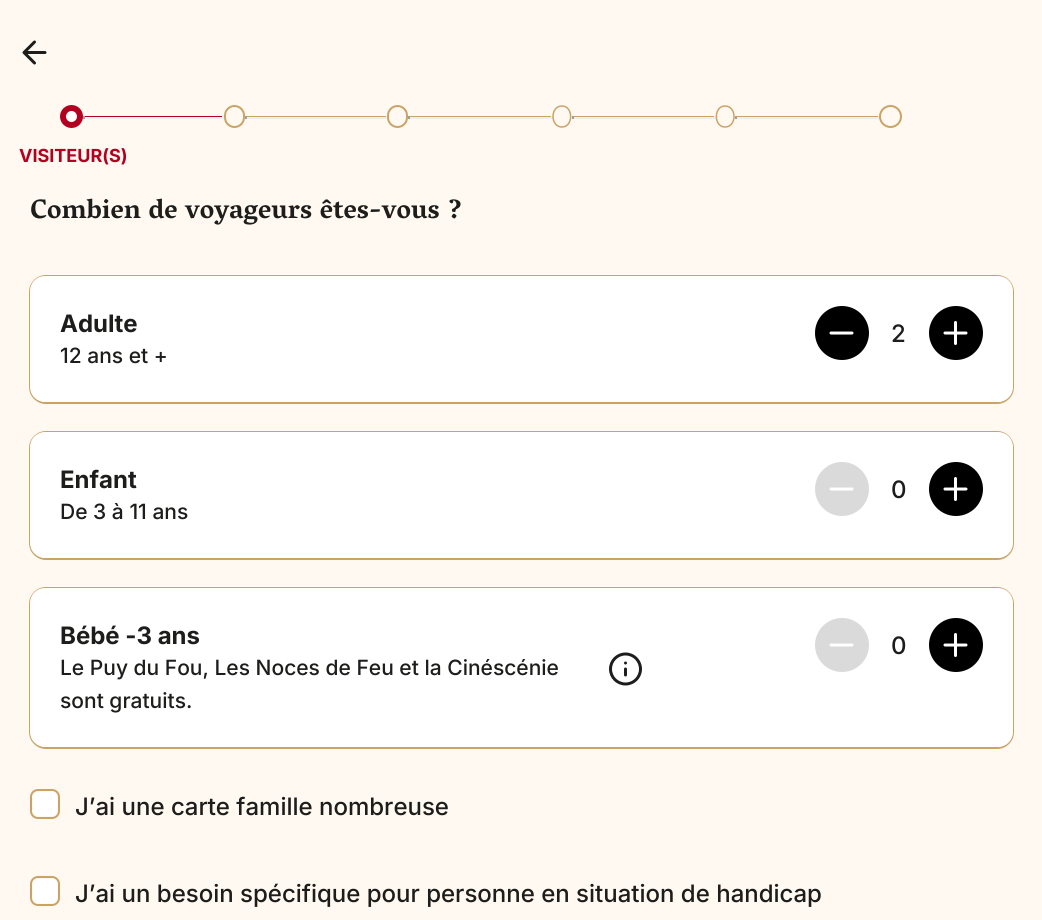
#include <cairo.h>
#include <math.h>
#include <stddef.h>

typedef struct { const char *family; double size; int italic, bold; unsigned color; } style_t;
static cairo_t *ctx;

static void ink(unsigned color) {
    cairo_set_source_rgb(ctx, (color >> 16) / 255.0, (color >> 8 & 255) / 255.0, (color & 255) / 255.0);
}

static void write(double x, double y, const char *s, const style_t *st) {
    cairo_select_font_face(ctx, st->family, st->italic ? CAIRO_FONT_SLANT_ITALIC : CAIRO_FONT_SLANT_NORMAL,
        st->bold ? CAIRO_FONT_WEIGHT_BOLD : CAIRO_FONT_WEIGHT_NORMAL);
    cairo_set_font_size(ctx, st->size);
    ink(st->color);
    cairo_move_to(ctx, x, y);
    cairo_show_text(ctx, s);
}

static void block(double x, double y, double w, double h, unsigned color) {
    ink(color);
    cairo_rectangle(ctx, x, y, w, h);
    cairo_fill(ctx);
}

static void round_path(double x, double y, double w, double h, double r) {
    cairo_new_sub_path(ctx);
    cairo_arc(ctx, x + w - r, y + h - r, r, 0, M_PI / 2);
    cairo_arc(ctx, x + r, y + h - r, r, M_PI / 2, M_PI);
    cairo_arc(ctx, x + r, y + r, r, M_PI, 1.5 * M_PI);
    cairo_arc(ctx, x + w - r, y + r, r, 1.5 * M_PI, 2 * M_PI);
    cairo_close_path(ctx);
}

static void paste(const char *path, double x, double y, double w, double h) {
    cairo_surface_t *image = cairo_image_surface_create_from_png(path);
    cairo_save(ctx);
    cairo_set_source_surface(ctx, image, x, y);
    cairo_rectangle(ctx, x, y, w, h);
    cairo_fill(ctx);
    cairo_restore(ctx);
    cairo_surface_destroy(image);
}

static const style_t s1 = {"Inter", 18, 0, 1, 0xb40020};
static const style_t s2 = {"Vesper Libre", 27, 0, 1, 0x1d1d1b};
static const style_t s3 = {"Inter", 24, 0, 1, 0x1d1d1b};
static const style_t s4 = {"Inter Medium", 21, 0, 0, 0x1d1d1b};
static const style_t s5 = {"Inter Medium", 24, 0, 0, 0x1d1d1b};

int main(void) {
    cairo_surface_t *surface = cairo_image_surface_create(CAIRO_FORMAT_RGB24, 1042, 920);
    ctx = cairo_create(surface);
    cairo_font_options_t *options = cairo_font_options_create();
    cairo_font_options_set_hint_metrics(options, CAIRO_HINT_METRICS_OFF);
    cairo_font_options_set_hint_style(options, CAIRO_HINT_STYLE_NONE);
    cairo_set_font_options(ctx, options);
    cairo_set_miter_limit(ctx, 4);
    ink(0xfff9f1);
    cairo_paint(ctx);
    cairo_new_path(ctx);
    cairo_move_to(ctx, 45, 52.5);
    cairo_line_to(ctx, 24, 52.5);
    cairo_move_to(ctx, 34.5, 63);
    cairo_line_to(ctx, 24, 52.5);
    cairo_line_to(ctx, 34.5, 42);
    ink(0x1d1d1b);
    cairo_set_line_width(ctx, 3);
    cairo_set_line_cap(ctx, CAIRO_LINE_CAP_ROUND);
    cairo_set_line_join(ctx, CAIRO_LINE_JOIN_ROUND);
    cairo_stroke(ctx);
    round_path(225, 106, 19, 21, 9.5);
    ink(0xcaa367);
    cairo_set_line_width(ctx, 2);
    cairo_set_line_cap(ctx, CAIRO_LINE_CAP_BUTT);
    cairo_set_line_join(ctx, CAIRO_LINE_JOIN_MITER);
    cairo_stroke(ctx);
    block(245, 116, 142, 1, 0xcaa367);
    block(386, 116, 2, 3, 0xeeeeee);
    block(245, 117, 142, 2, 0xeeeeee);
    block(245, 116, 2, 3, 0x9f9f9f);
    round_path(388, 106, 19, 21, 9.5);
    ink(0xcaa367);
    cairo_stroke(ctx);
    block(408, 116, 144, 1, 0xcaa367);
    block(551, 116, 2, 3, 0xeeeeee);
    block(408, 117, 144, 2, 0xeeeeee);
    block(408, 116, 2, 3, 0x9f9f9f);
    cairo_new_path(ctx);
    cairo_move_to(ctx, 562, 106);
    cairo_curve_to(ctx, 573.5, 106, 573.5, 127, 562, 127);
    cairo_curve_to(ctx, 550, 127, 550, 106, 562, 106);
    cairo_close_path(ctx);
    ink(0xcaa367);
    cairo_set_line_width(ctx, 1.5);
    cairo_stroke(ctx);
    block(572, 116, 144, 1, 0xcaa367);
    block(714, 116, 2, 3, 0xeeeeee);
    block(572, 117, 144, 2, 0xeeeeee);
    block(572, 116, 2, 3, 0x9f9f9f);
    cairo_new_path(ctx);
    cairo_move_to(ctx, 725, 106);
    cairo_curve_to(ctx, 737, 106, 737, 127, 725, 127);
    cairo_curve_to(ctx, 713.5, 127, 713.5, 106, 725, 106);
    cairo_close_path(ctx);
    ink(0xcaa367);
    cairo_stroke(ctx);
    block(735, 116, 144, 1, 0xcaa367);
    block(878, 116, 2, 3, 0xeeeeee);
    block(735, 117, 144, 2, 0xeeeeee);
    block(735, 116, 2, 3, 0x9f9f9f);
    cairo_arc(ctx, 890.5, 116.5, 10.5, 0, 2 * M_PI);
    ink(0xcaa367);
    cairo_set_line_width(ctx, 2);
    cairo_stroke(ctx);
    block(83, 116, 141, 1, 0xb40020);
    block(222, 116, 2, 3, 0xeeeeee);
    block(83, 117, 141, 2, 0xeeeeee);
    block(83, 116, 2, 3, 0x9f9f9f);
    ink(0xffffff);
    cairo_arc(ctx, 71.5, 116.5, 8.5, 0, 2 * M_PI);
    cairo_fill_preserve(ctx);
    ink(0xb40020);
    cairo_set_line_width(ctx, 6);
    cairo_stroke(ctx);
    write(19, 162, "VISITEUR(S)", &s1);
    write(30, 218, "Combien de voyageurs êtes-vous ?", &s2);
    round_path(30, 276, 983, 127, 16);
    ink(0xcaa367);
    cairo_set_line_width(ctx, 2);
    cairo_stroke(ctx);
    ink(0xffffff);
    round_path(30, 276, 983, 126, 15);
    cairo_fill(ctx);
    write(60, 332, "Adulte", &s3);
    write(60, 363, "12 ans et +", &s4);
    ink(0x000000);
    cairo_new_path(ctx);
    cairo_arc(ctx, 842, 333, 26, 0, 2 * M_PI);
    cairo_fill_preserve(ctx);
    cairo_stroke(ctx);
    cairo_new_path(ctx);
    cairo_move_to(ctx, 831, 333);
    cairo_line_to(ctx, 852, 333);
    ink(0xffffff);
    cairo_set_line_width(ctx, 3);
    cairo_set_line_cap(ctx, CAIRO_LINE_CAP_ROUND);
    cairo_set_line_join(ctx, CAIRO_LINE_JOIN_ROUND);
    cairo_stroke(ctx);
    write(891, 342, "2", &s5);
    ink(0x000000);
    cairo_new_path(ctx);
    cairo_arc(ctx, 956, 333, 26, 0, 2 * M_PI);
    cairo_fill_preserve(ctx);
    cairo_set_line_width(ctx, 2);
    cairo_set_line_cap(ctx, CAIRO_LINE_CAP_BUTT);
    cairo_set_line_join(ctx, CAIRO_LINE_JOIN_MITER);
    cairo_stroke(ctx);
    cairo_new_path(ctx);
    cairo_move_to(ctx, 955.5, 322.5);
    cairo_line_to(ctx, 955.5, 343.5);
    cairo_move_to(ctx, 945, 333);
    cairo_line_to(ctx, 966, 333);
    ink(0xffffff);
    cairo_set_line_width(ctx, 3);
    cairo_set_line_cap(ctx, CAIRO_LINE_CAP_ROUND);
    cairo_set_line_join(ctx, CAIRO_LINE_JOIN_ROUND);
    cairo_stroke(ctx);
    round_path(30, 432, 983, 127, 16);
    ink(0xcaa367);
    cairo_set_line_width(ctx, 2);
    cairo_set_line_cap(ctx, CAIRO_LINE_CAP_BUTT);
    cairo_set_line_join(ctx, CAIRO_LINE_JOIN_MITER);
    cairo_stroke(ctx);
    ink(0xffffff);
    round_path(30, 432, 983, 126, 15);
    cairo_fill(ctx);
    write(60, 488, "Enfant", &s3);
    write(60, 519, "De 3 à 11 ans", &s4);
    ink(0xdadada);
    cairo_new_path(ctx);
    cairo_arc(ctx, 842, 489, 26, 0, 2 * M_PI);
    cairo_fill_preserve(ctx);
    cairo_stroke(ctx);
    cairo_new_path(ctx);
    cairo_move_to(ctx, 831, 489);
    cairo_line_to(ctx, 852, 489);
    ink(0xffffff);
    cairo_set_line_width(ctx, 3);
    cairo_set_line_cap(ctx, CAIRO_LINE_CAP_ROUND);
    cairo_set_line_join(ctx, CAIRO_LINE_JOIN_ROUND);
    cairo_stroke(ctx);
    write(891, 498, "0", &s5);
    ink(0x000000);
    cairo_new_path(ctx);
    cairo_arc(ctx, 956, 489, 26, 0, 2 * M_PI);
    cairo_fill_preserve(ctx);
    cairo_set_line_width(ctx, 2);
    cairo_set_line_cap(ctx, CAIRO_LINE_CAP_BUTT);
    cairo_set_line_join(ctx, CAIRO_LINE_JOIN_MITER);
    cairo_stroke(ctx);
    cairo_new_path(ctx);
    cairo_move_to(ctx, 955.5, 478.5);
    cairo_line_to(ctx, 955.5, 499.5);
    cairo_move_to(ctx, 945, 489);
    cairo_line_to(ctx, 966, 489);
    ink(0xffffff);
    cairo_set_line_width(ctx, 3);
    cairo_set_line_cap(ctx, CAIRO_LINE_CAP_ROUND);
    cairo_set_line_join(ctx, CAIRO_LINE_JOIN_ROUND);
    cairo_stroke(ctx);
    round_path(30, 588, 983, 160, 16);
    ink(0xcaa367);
    cairo_set_line_width(ctx, 2);
    cairo_set_line_cap(ctx, CAIRO_LINE_CAP_BUTT);
    cairo_set_line_join(ctx, CAIRO_LINE_JOIN_MITER);
    cairo_stroke(ctx);
    ink(0xffffff);
    round_path(30, 588, 983, 159, 15);
    cairo_fill(ctx);
    write(60, 644, "Bébé -3 ans", &s3);
    write(60, 675, "Le Puy du Fou, Les Noces de Feu et la Cinéscénie", &s4);
    paste("pic1.png", 609, 652, 33, 34);
    write(60, 708, "sont gratuits.", &s4);
    ink(0xdadada);
    cairo_new_path(ctx);
    cairo_arc(ctx, 842, 645, 26, 0, 2 * M_PI);
    cairo_fill_preserve(ctx);
    cairo_stroke(ctx);
    cairo_new_path(ctx);
    cairo_move_to(ctx, 831, 645);
    cairo_line_to(ctx, 852, 645);
    ink(0xffffff);
    cairo_set_line_width(ctx, 3);
    cairo_set_line_cap(ctx, CAIRO_LINE_CAP_ROUND);
    cairo_set_line_join(ctx, CAIRO_LINE_JOIN_ROUND);
    cairo_stroke(ctx);
    write(891, 654, "0", &s5);
    ink(0x000000);
    cairo_new_path(ctx);
    cairo_arc(ctx, 956, 645, 26, 0, 2 * M_PI);
    cairo_fill_preserve(ctx);
    cairo_set_line_width(ctx, 2);
    cairo_set_line_cap(ctx, CAIRO_LINE_CAP_BUTT);
    cairo_set_line_join(ctx, CAIRO_LINE_JOIN_MITER);
    cairo_stroke(ctx);
    cairo_new_path(ctx);
    cairo_move_to(ctx, 955.5, 634.5);
    cairo_line_to(ctx, 955.5, 655.5);
    cairo_move_to(ctx, 945, 645);
    cairo_line_to(ctx, 966, 645);
    ink(0xffffff);
    cairo_set_line_width(ctx, 3);
    cairo_set_line_cap(ctx, CAIRO_LINE_CAP_ROUND);
    cairo_set_line_join(ctx, CAIRO_LINE_JOIN_ROUND);
    cairo_stroke(ctx);
    round_path(31, 790, 28, 28, 7);
    ink(0xcaa367);
    cairo_set_line_width(ctx, 2);
    cairo_set_line_cap(ctx, CAIRO_LINE_CAP_BUTT);
    cairo_set_line_join(ctx, CAIRO_LINE_JOIN_MITER);
    cairo_stroke(ctx);
    ink(0xffffff);
    round_path(33, 792, 24, 24, 5);
    cairo_fill(ctx);
    write(75, 815, "J’ai une carte famille nombreuse", &s5);
    round_path(31, 877, 28, 28, 7);
    ink(0xcaa367);
    cairo_stroke(ctx);
    ink(0xffffff);
    round_path(33, 879, 24, 24, 5);
    cairo_fill(ctx);
    write(75, 902, "J’ai un besoin spécifique pour personne en situation de handicap", &s5);
    cairo_surface_write_to_png(surface, "screenshot.png");
    cairo_font_options_destroy(options);
    cairo_destroy(ctx);
    cairo_surface_destroy(surface);
    return 0;
}
